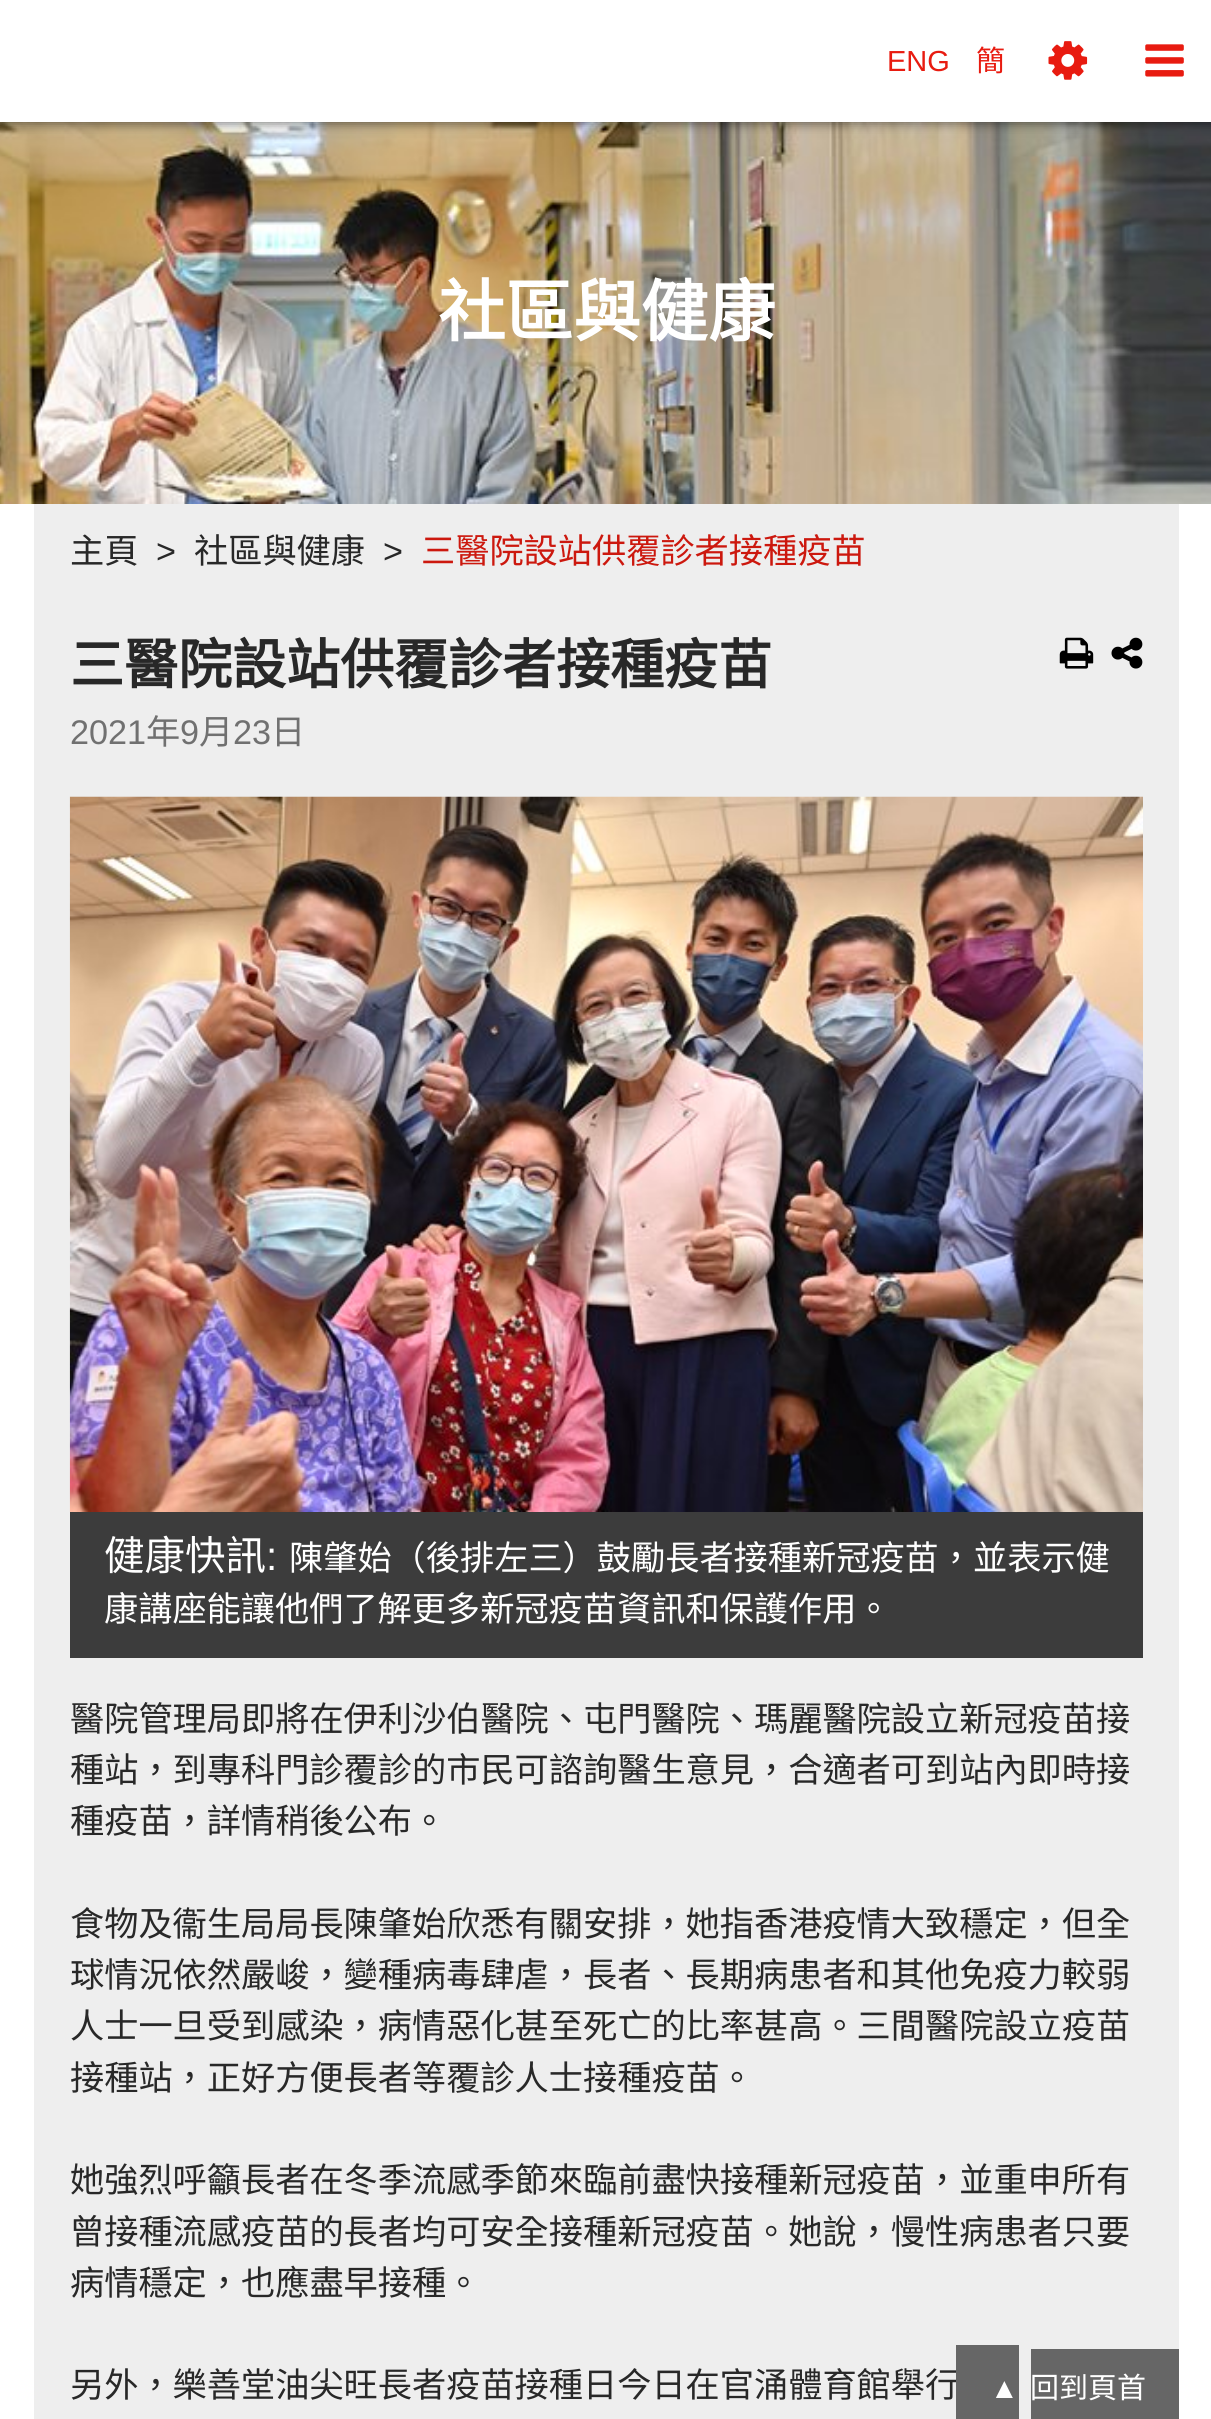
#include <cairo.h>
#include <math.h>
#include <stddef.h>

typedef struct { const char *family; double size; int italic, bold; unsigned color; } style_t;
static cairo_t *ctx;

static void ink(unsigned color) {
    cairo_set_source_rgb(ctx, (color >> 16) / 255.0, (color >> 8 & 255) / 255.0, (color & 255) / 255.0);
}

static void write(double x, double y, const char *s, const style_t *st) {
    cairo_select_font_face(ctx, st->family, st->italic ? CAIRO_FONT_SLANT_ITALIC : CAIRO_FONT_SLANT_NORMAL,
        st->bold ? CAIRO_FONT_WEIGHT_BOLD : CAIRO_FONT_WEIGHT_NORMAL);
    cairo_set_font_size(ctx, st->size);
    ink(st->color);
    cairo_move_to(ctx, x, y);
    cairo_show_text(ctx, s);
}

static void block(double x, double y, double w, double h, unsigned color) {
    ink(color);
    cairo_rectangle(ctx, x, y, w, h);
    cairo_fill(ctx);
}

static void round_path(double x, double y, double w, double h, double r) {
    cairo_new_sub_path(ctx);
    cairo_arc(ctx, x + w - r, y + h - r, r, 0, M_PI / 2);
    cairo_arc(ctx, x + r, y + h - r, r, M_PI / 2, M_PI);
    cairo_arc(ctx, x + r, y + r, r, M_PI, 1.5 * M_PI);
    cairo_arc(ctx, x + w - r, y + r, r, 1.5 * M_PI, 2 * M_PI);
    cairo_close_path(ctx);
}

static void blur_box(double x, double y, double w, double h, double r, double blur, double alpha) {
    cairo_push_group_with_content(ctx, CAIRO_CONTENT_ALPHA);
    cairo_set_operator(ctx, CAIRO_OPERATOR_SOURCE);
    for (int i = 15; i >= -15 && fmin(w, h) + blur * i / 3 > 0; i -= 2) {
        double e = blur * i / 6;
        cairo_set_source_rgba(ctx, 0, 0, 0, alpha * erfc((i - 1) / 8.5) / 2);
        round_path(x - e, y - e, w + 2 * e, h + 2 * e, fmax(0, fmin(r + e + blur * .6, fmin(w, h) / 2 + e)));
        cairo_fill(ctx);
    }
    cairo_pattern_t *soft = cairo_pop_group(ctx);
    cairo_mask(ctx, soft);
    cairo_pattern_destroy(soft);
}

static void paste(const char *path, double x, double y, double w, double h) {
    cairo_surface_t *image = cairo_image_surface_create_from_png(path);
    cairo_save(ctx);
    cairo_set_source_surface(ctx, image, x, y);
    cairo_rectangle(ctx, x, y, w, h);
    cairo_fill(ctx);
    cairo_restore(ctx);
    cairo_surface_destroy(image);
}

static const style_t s1 = {"Liberation Sans", 29, 0, 0, 0xe81b10};
static const style_t s2 = {"Noto Sans CJK HK", 29, 0, 0, 0xe81b10};
static const style_t s3 = {"Noto Sans CJK HK", 67.5, 0, 1, 0xffffff};
static const style_t s4 = {"Noto Sans CJK HK", 34.2, 0, 0, 0x282828};
static const style_t s5 = {"Liberation Sans", 34.2, 0, 0, 0x282828};
static const style_t s6 = {"Noto Sans CJK HK", 34.2, 0, 0, 0xcc180e};
static const style_t s7 = {"Noto Sans CJK HK", 54, 0, 1, 0x282828};
static const style_t s8 = {"Liberation Sans", 34.2, 0, 0, 0x707070};
static const style_t s9 = {"Noto Sans CJK HK", 34.2, 0, 0, 0x707070};
static const style_t s10 = {"Noto Sans CJK HK", 40.5, 0, 0, 0xffffff};
static const style_t s11 = {"Liberation Sans", 40.5, 0, 0, 0xffffff};
static const style_t s12 = {"Noto Sans CJK HK", 34.2, 0, 0, 0xffffff};
static const style_t s13 = {"Liberation Sans", 29, 0, 0, 0xffffff};
static const style_t s14 = {"Noto Sans CJK HK", 29, 0, 0, 0xffffff};

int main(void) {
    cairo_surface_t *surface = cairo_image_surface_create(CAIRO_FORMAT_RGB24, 1211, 2419);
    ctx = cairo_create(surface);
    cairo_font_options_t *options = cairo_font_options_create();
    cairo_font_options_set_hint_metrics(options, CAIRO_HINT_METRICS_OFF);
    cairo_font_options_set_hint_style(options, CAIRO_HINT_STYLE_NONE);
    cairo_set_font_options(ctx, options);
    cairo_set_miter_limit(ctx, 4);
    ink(0xffffff);
    cairo_paint(ctx);
    paste("pic3.png", 0, 122, 1211, 382);
    ink(0x000000);
    blur_box(0, 2, 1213, 122, 0, 5.5, 0.5);
    block(0, 0, 1211, 122, 0xffffff);
    write(887, 71, "ENG", &s1);
    write(976, 71, "簡", &s2);
    paste("pic1.png", 1048, 41, 40, 39);
    paste("pic2.png", 1145, 44, 39, 33);
    write(438, 336, "社區與健康", &s3);
    block(34, 504, 1145, 1915, 0xeeeeee);
    write(70, 563, "主頁", &s4);
    write(156, 563, ">", &s5);
    write(194, 563, "社區與健康", &s4);
    write(383, 563, ">", &s5);
    write(421, 563, "三醫院設站供覆診者接種疫苗", &s6);
    write(70, 684, "三醫院設站供覆診者接種疫苗", &s7);
    paste("pic4.png", 1059, 637, 35, 32);
    paste("pic5.png", 1111, 637, 32, 32);
    write(70, 744, "2021", &s8);
    write(146, 744, "年", &s9);
    write(180, 744, "9", &s8);
    write(199, 744, "月", &s9);
    write(233, 744, "23", &s8);
    write(271, 744, "日", &s9);
    paste("pic6.png", 69, 796, 1074, 716);
    block(70, 1512, 1073, 146, 0x3c3c3c);
    write(104, 1570, "健康快訊", &s10);
    write(266, 1570, ":", &s11);
    write(289, 1570, "陳肇始（後排左三）鼓勵長者接種新冠疫苗，並表示健", &s12);
    write(104, 1621, "康講座能讓他們了解更多新冠疫苗資訊和保護作用。", &s12);
    write(70, 1731, "醫院管理局即將在伊利沙伯醫院、屯門醫院、瑪麗醫院設立新冠疫苗接", &s4);
    write(70, 1782, "種站，到專科門診覆診的市民可諮詢醫生意見，合適者可到站內即時接", &s4);
    write(70, 1833, "種疫苗，詳情稍後公布。", &s4);
    write(70, 1936, "食物及衞生局局長陳肇始欣悉有關安排，她指香港疫情大致穩定，但全", &s4);
    write(70, 1987, "球情況依然嚴峻，變種病毒肆虐，長者、長期病患者和其他免疫力較弱", &s4);
    write(70, 2038, "人士一旦受到感染，病情惡化甚至死亡的比率甚高。三間醫院設立疫苗", &s4);
    write(70, 2090, "接種站，正好方便長者等覆診人士接種疫苗。", &s4);
    write(70, 2192, "她強烈呼籲長者在冬季流感季節來臨前盡快接種新冠疫苗，並重申所有", &s4);
    write(70, 2244, "曾接種流感疫苗的長者均可安全接種新冠疫苗。她說，慢性病患者只要", &s4);
    write(70, 2295, "病情穩定，也應盡早接種。", &s4);
    write(70, 2397, "另外，樂善堂油尖旺長者疫苗接種日今日在官涌體育館舉行", &s4);
    block(956, 2345, 63, 74, 0x666666);
    block(1031, 2349, 148, 70, 0x666666);
    write(990, 2398, "▲", &s13);
    write(1030, 2398, "回到頁首", &s14);
    cairo_surface_write_to_png(surface, "screenshot.png");
    cairo_font_options_destroy(options);
    cairo_destroy(ctx);
    cairo_surface_destroy(surface);
    return 0;
}
